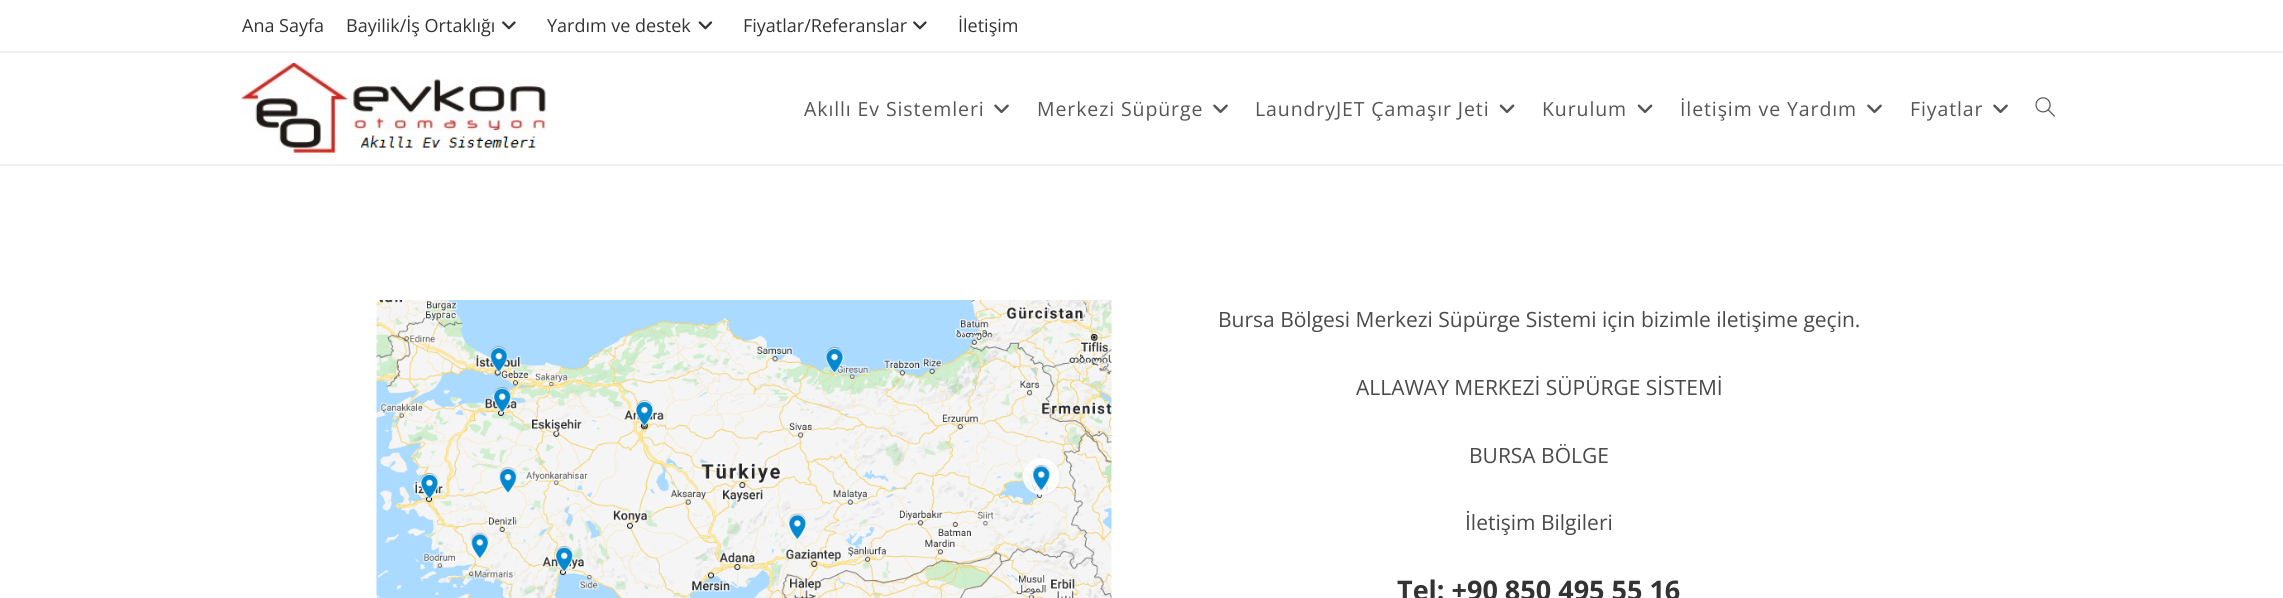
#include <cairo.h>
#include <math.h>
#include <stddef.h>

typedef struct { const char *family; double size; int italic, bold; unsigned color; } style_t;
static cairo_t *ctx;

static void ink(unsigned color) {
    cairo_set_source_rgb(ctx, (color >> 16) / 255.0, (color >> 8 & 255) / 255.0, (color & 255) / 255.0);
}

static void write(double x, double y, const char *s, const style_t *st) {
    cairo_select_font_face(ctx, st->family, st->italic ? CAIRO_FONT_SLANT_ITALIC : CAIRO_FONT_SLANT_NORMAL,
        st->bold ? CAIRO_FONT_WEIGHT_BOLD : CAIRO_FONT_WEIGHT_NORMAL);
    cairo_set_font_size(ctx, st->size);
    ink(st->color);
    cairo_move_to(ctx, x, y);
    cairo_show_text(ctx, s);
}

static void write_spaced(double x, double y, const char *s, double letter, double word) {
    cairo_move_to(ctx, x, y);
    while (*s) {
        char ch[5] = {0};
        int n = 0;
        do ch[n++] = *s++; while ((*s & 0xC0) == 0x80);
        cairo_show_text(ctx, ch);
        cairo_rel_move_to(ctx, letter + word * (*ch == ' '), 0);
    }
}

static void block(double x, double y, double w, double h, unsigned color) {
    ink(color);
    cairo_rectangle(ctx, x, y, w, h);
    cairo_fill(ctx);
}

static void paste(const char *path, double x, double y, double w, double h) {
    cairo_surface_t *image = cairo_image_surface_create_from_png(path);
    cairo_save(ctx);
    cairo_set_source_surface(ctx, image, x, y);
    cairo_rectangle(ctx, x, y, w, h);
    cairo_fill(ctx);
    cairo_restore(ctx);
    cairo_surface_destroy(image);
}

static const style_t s1 = {"Open Sans", 18, 0, 0, 0x333333};
static const style_t s2 = {"Open Sans", 21, 0, 0, 0x4a4a4a};
static const style_t s3 = {"Open Sans", 27, 0, 1, 0x333333};

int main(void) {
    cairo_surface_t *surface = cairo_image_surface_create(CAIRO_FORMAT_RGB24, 2283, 598);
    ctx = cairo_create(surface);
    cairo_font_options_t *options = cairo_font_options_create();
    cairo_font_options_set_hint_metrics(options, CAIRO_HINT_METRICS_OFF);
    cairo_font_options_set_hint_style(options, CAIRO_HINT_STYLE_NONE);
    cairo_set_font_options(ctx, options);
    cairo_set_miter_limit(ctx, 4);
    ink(0xffffff);
    cairo_paint(ctx);
    block(0, 51, 2283, 2, 0xf1f1f1);
    write(242, 32, "Ana Sayfa", &s1);
    write(346, 32, "Bayilik/İş Ortaklığı", &s1);
    paste("pic1.png", 502, 21, 14, 9);
    write(547, 32, "Yardım ve destek", &s1);
    paste("pic2.png", 698, 21, 15, 9);
    write(743, 32, "Fiyatlar/Referanslar", &s1);
    paste("pic1.png", 913, 21, 14, 9);
    write(958, 32, "İletişim", &s1);
    block(0, 164, 2283, 2, 0xf1f1f1);
    paste("pic3.png", 241, 63, 305, 90);
    cairo_set_font_size(ctx, 19.5);
    ink(0x555555);
    write_spaced(804, 116, "Akıllı Ev Sistemleri", 0.9, 0);
    paste("pic4.png", 994, 104, 15, 9);
    write_spaced(1037, 116, "Merkezi Süpürge", 0.9, 0);
    paste("pic4.png", 1213, 104, 15, 9);
    write_spaced(1255, 116, "LaundryJET Çamaşır Jeti", 0.9, 0);
    paste("pic5.png", 1499, 104, 16, 9);
    write_spaced(1542, 116, "Kurulum", 0.9, 0);
    paste("pic5.png", 1637, 104, 16, 9);
    write_spaced(1680, 116, "İletişim ve Yardım", 0.9, 0);
    paste("pic4.png", 1867, 104, 15, 9);
    write_spaced(1910, 116, "Fiyatlar", 0.9, 0);
    paste("pic4.png", 1993, 104, 15, 9);
    paste("pic6.png", 2035, 97, 20, 20);
    paste("pic7.png", 376, 300, 736, 298);
    write(1218, 327, "Bursa Bölgesi Merkezi Süpürge Sistemi için bizimle iletişime geçin.", &s2);
    write(1356, 395, "ALLAWAY MERKEZİ SÜPÜRGE SİSTEMİ", &s2);
    write(1469, 463, "BURSA BÖLGE", &s2);
    write(1465, 530, "İletişim Bilgileri", &s2);
    write(1397, 600, "Tel: +90 850 495 55 16", &s3);
    cairo_surface_write_to_png(surface, "screenshot.png");
    cairo_font_options_destroy(options);
    cairo_destroy(ctx);
    cairo_surface_destroy(surface);
    return 0;
}
